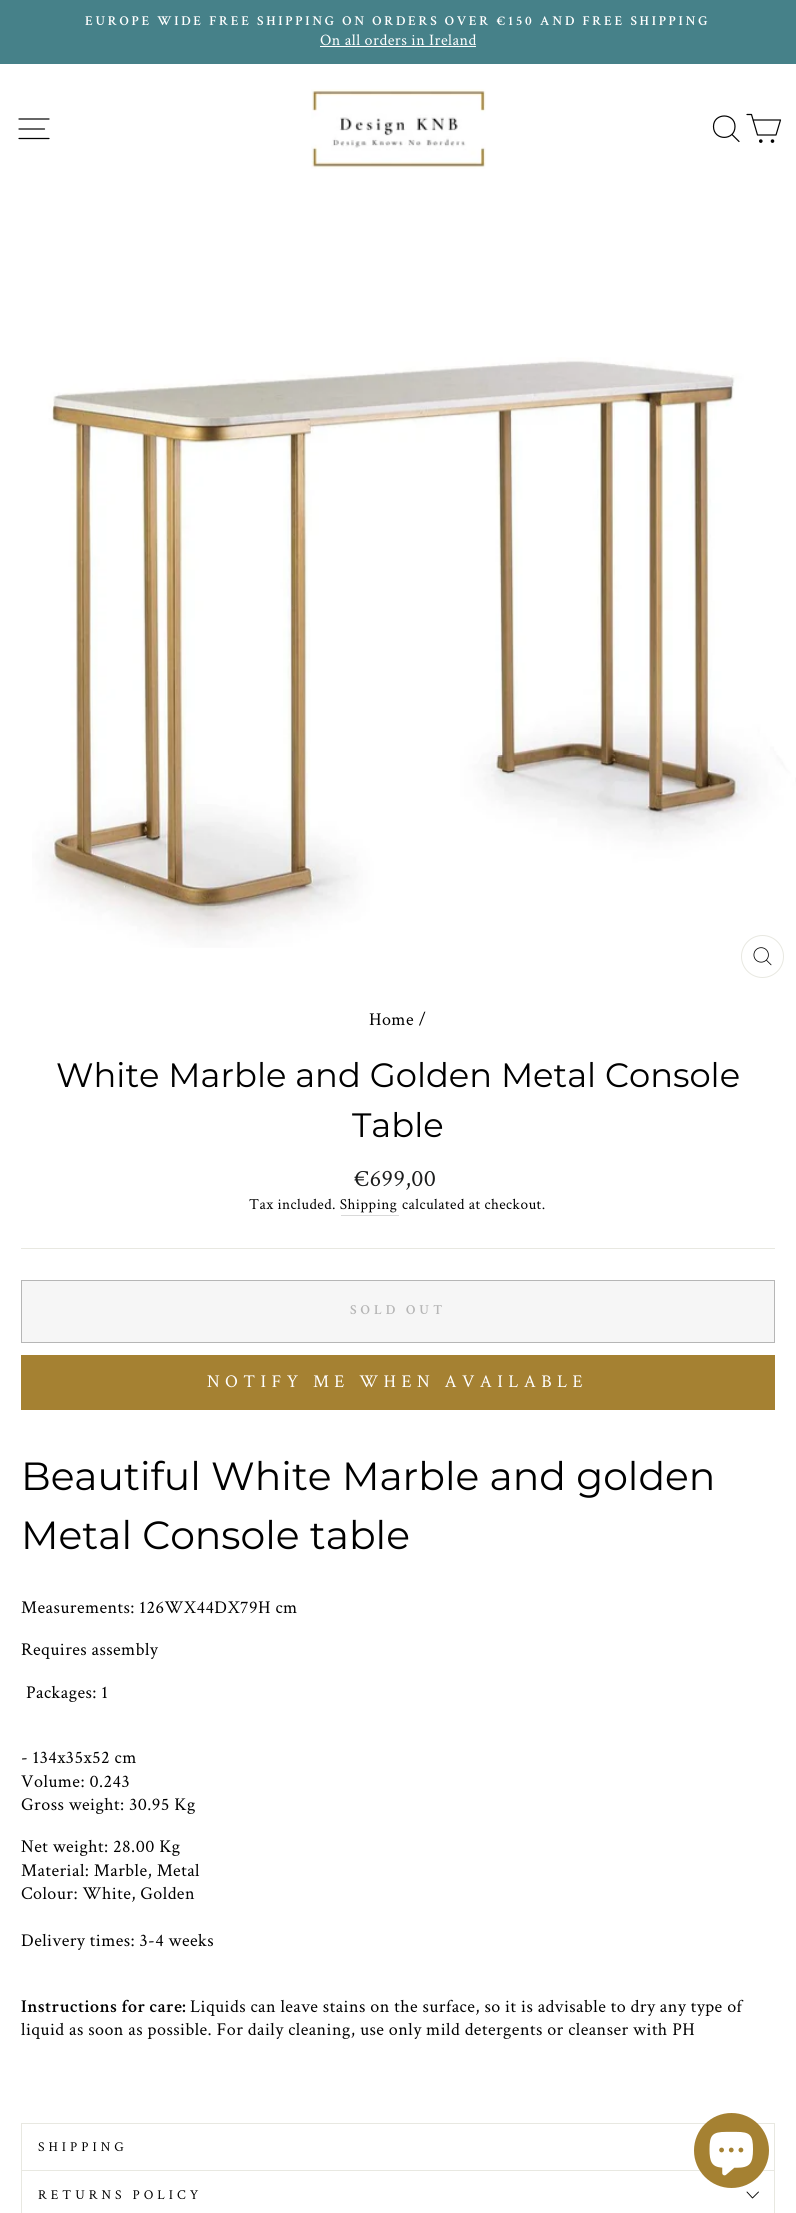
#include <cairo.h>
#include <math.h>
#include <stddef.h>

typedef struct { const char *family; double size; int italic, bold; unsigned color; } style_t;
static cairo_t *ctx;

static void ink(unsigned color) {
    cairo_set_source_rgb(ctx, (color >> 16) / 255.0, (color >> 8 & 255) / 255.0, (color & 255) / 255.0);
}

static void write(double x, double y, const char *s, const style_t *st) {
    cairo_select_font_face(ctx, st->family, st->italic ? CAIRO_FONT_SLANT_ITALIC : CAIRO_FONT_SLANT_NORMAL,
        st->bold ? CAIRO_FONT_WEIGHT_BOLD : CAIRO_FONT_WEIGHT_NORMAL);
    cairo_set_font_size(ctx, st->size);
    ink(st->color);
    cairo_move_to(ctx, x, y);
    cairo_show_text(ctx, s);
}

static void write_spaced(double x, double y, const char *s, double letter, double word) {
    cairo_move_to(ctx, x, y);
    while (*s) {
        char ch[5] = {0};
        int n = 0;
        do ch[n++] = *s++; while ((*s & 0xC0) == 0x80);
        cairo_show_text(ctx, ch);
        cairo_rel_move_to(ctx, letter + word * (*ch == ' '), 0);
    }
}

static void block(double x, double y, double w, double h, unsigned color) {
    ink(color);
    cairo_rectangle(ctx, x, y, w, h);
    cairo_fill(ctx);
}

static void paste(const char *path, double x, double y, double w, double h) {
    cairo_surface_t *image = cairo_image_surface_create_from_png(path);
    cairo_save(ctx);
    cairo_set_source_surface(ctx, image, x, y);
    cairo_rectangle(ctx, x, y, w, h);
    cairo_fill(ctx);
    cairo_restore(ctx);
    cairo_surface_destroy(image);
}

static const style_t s1 = {"Montserrat", 33.75, 0, 0, 0x000000};
static const style_t s2 = {"Montserrat", 39.3, 0, 0, 0x000000};

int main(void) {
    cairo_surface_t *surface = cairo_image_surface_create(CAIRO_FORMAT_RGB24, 796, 2213);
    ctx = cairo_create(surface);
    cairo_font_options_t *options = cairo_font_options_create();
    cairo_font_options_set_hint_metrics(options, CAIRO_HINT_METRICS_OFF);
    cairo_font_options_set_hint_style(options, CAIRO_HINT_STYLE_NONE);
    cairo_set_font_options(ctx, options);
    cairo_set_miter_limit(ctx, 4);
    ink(0xffffff);
    cairo_paint(ctx);
    block(0, 0, 796, 64, 0x468189);
    cairo_select_font_face(ctx, "Crimson Text SemiBold", CAIRO_FONT_SLANT_NORMAL, CAIRO_FONT_WEIGHT_NORMAL);
    cairo_set_font_size(ctx, 13.55);
    ink(0xffffff);
    write_spaced(85, 25, "EUROPE WIDE FREE SHIPPING ON ORDERS OVER €150 AND FREE SHIPPING", 2.7, 0);
    cairo_select_font_face(ctx, "Crimson Text", CAIRO_FONT_SLANT_NORMAL, CAIRO_FONT_WEIGHT_NORMAL);
    cairo_set_font_size(ctx, 16);
    write_spaced(320, 45, "On all orders in Ireland", 0.45, 0);
    block(320, 46, 156, 1, 0xffffff);
    cairo_new_path(ctx);
    cairo_move_to(ctx, 19, 119);
    cairo_line_to(ctx, 49, 119);
    cairo_move_to(ctx, 19, 129);
    cairo_line_to(ctx, 44.5, 129);
    cairo_move_to(ctx, 19, 138.5);
    cairo_line_to(ctx, 49, 138.5);
    ink(0x000000);
    cairo_set_line_width(ctx, 1.2);
    cairo_set_line_cap(ctx, CAIRO_LINE_CAP_ROUND);
    cairo_set_line_join(ctx, CAIRO_LINE_JOIN_ROUND);
    cairo_stroke(ctx);
    paste("pic1.png", 311, 89, 175, 80);
    cairo_new_path(ctx);
    cairo_move_to(ctx, 735, 126.5);
    cairo_curve_to(ctx, 735, 141, 713.5, 141, 713.5, 126.5);
    cairo_curve_to(ctx, 713.5, 112.5, 735, 112.5, 735, 126.5);
    cairo_close_path(ctx);
    cairo_move_to(ctx, 739, 141.5);
    cairo_line_to(ctx, 732, 134.5);
    cairo_stroke(ctx);
    cairo_new_path(ctx);
    cairo_move_to(ctx, 753, 120);
    cairo_line_to(ctx, 780.5, 120);
    cairo_line_to(ctx, 776, 135);
    cairo_line_to(ctx, 757.5, 135);
    cairo_line_to(ctx, 751.5, 114.5);
    cairo_line_to(ctx, 747, 114.5);
    cairo_stroke(ctx);
    cairo_arc(ctx, 760.8, 141.1, 1.2, 0, 2 * M_PI);
    cairo_fill_preserve(ctx);
    cairo_set_line_cap(ctx, CAIRO_LINE_CAP_BUTT);
    cairo_set_line_join(ctx, CAIRO_LINE_JOIN_MITER);
    cairo_stroke(ctx);
    cairo_arc(ctx, 772.5, 141.1, 1.2, 0, 2 * M_PI);
    cairo_fill_preserve(ctx);
    cairo_stroke(ctx);
    paste("pic2.png", 32, 357, 764, 591);
    cairo_arc(ctx, 762.5, 956.5, 21, 0, 2 * M_PI);
    ink(0xe8e8e1);
    cairo_set_line_width(ctx, 1);
    cairo_stroke(ctx);
    paste("pic3.png", 753, 947, 19, 19);
    cairo_set_font_size(ctx, 18.05);
    ink(0x000000);
    write_spaced(369, 1025, "Home /", 0.45, 0);
    write(56, 1087, "White Marble and Golden Metal Console", &s1);
    write(352, 1137, "Table", &s1);
    cairo_select_font_face(ctx, "Crimson Text", CAIRO_FONT_SLANT_NORMAL, CAIRO_FONT_WEIGHT_NORMAL);
    cairo_set_font_size(ctx, 24);
    ink(0x1c1d1d);
    write_spaced(354, 1186, "€699,00", 0.45, 0);
    cairo_set_font_size(ctx, 15.25);
    ink(0x000000);
    write_spaced(249, 1209, "Tax included. Shipping", 0.45, 0);
    write_spaced(402, 1209, "calculated at checkout.", 0.45, 0);
    block(341, 1215, 58, 1, 0xd9d9d9);
    block(21, 1248, 754, 1, 0xe8e8e1);
    ink(0xf6f6f6);
    cairo_rectangle(ctx, 21.5, 1280.5, 753, 62);
    cairo_fill_preserve(ctx);
    ink(0xb6b6b6);
    cairo_stroke(ctx);
    cairo_select_font_face(ctx, "Crimson Text SemiBold", CAIRO_FONT_SLANT_NORMAL, CAIRO_FONT_WEIGHT_NORMAL);
    cairo_set_font_size(ctx, 13.75);
    write_spaced(350, 1314, "SOLD OUT", 4, 0);
    block(21, 1355, 754, 55, 0xa58132);
    cairo_select_font_face(ctx, "Crimson Text", CAIRO_FONT_SLANT_NORMAL, CAIRO_FONT_WEIGHT_NORMAL);
    cairo_set_font_size(ctx, 18.05);
    ink(0xffffff);
    write_spaced(207, 1387, "NOTIFY ME WHEN AVAILABLE", 5.4, 0);
    write(21, 1490, "Beautiful White Marble and golden", &s2);
    write(21, 1549, "Metal Console table", &s2);
    cairo_select_font_face(ctx, "Crimson Text", CAIRO_FONT_SLANT_NORMAL, CAIRO_FONT_WEIGHT_NORMAL);
    cairo_set_font_size(ctx, 18.05);
    write_spaced(21, 1613, "Measurements: 126WX44DX79H cm", 0.45, 0);
    write_spaced(21, 1655, "Requires assembly", 0.45, 0);
    write_spaced(26, 1698, "Packages: 1", 0.45, 0);
    write_spaced(21, 1763, "- 134x35x52 cm", 0.45, 0);
    write_spaced(21, 1787, "Volume: 0.243", 0.45, 0);
    write_spaced(21, 1810, "Gross weight: 30.95 Kg", 0.45, 0);
    write_spaced(21, 1852, "Net weight: 28.00 Kg", 0.45, 0);
    write_spaced(21, 1876, "Material: Marble, Metal", 0.45, 0);
    write_spaced(21, 1899, "Colour: White, Golden", 0.45, 0);
    write_spaced(21, 1946, "Delivery times: 3-4 weeks", 0.45, 0);
    cairo_select_font_face(ctx, "Crimson Text SemiBold", CAIRO_FONT_SLANT_NORMAL, CAIRO_FONT_WEIGHT_NORMAL);
    write_spaced(21, 2012, "Instructions for care:", 0.45, 0);
    cairo_select_font_face(ctx, "Crimson Text", CAIRO_FONT_SLANT_NORMAL, CAIRO_FONT_WEIGHT_NORMAL);
    write_spaced(190, 2012, "Liquids can leave stains on the surface, so it is advisable to dry any type of", 0.45, 0);
    write_spaced(21, 2035, "liquid as soon as possible. For daily cleaning, use only mild detergents or cleanser with PH", 0.45, 0);
    block(21, 2123, 754, 1, 0xe8e8e1);
    block(774, 2123, 1, 48, 0xe8e8e1);
    block(21, 2123, 1, 48, 0xe8e8e1);
    cairo_set_font_size(ctx, 13.55);
    ink(0x000000);
    write_spaced(38, 2151, "SHIPPING", 4, 0);
    block(21, 2170, 754, 1, 0xe8e8e1);
    block(774, 2170, 1, 43, 0xe8e8e1);
    block(21, 2170, 1, 43, 0xe8e8e1);
    ink(0x000000);
    write_spaced(38, 2199, "RETURNS POLICY", 4, 0);
    cairo_new_path(ctx);
    cairo_move_to(ctx, 747, 2192);
    cairo_line_to(ctx, 752.5, 2198);
    cairo_line_to(ctx, 758.5, 2192);
    cairo_set_line_width(ctx, 0.9);
    cairo_set_line_cap(ctx, CAIRO_LINE_CAP_ROUND);
    cairo_set_line_join(ctx, CAIRO_LINE_JOIN_ROUND);
    cairo_stroke(ctx);
    ink(0xa58132);
    cairo_arc(ctx, 731.5, 2150.5, 37.5, 0, 2 * M_PI);
    cairo_fill(ctx);
    paste("pic4.png", 709, 2131, 44, 45);
    cairo_surface_write_to_png(surface, "screenshot.png");
    cairo_font_options_destroy(options);
    cairo_destroy(ctx);
    cairo_surface_destroy(surface);
    return 0;
}
